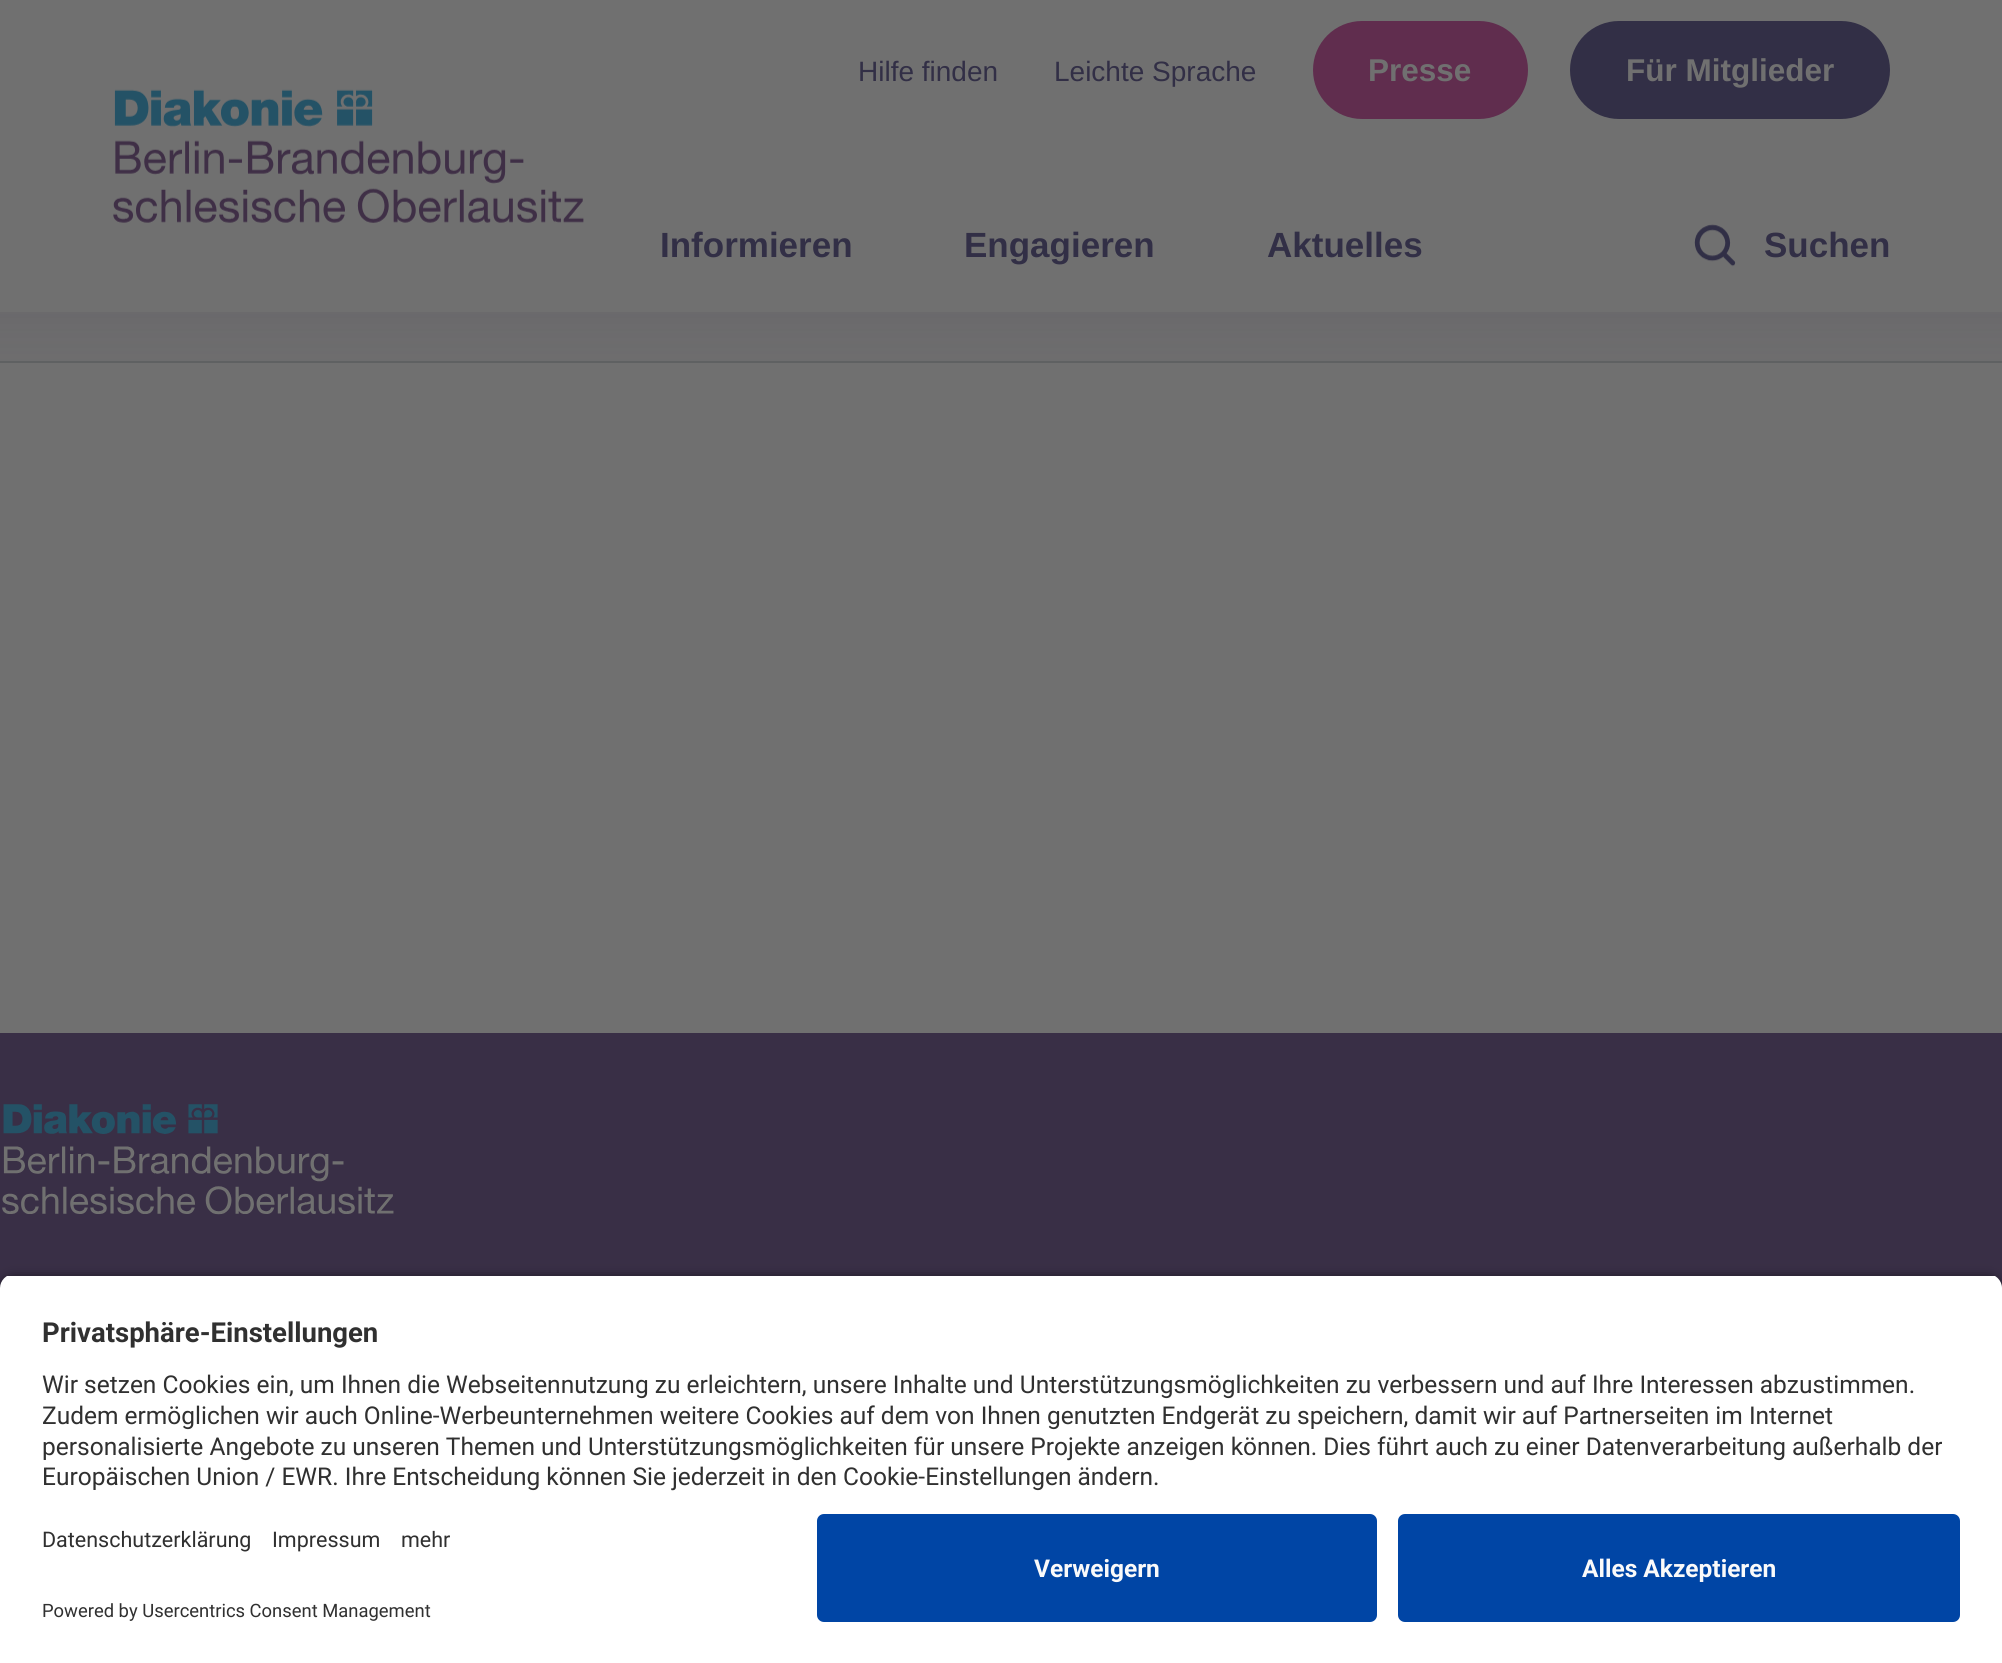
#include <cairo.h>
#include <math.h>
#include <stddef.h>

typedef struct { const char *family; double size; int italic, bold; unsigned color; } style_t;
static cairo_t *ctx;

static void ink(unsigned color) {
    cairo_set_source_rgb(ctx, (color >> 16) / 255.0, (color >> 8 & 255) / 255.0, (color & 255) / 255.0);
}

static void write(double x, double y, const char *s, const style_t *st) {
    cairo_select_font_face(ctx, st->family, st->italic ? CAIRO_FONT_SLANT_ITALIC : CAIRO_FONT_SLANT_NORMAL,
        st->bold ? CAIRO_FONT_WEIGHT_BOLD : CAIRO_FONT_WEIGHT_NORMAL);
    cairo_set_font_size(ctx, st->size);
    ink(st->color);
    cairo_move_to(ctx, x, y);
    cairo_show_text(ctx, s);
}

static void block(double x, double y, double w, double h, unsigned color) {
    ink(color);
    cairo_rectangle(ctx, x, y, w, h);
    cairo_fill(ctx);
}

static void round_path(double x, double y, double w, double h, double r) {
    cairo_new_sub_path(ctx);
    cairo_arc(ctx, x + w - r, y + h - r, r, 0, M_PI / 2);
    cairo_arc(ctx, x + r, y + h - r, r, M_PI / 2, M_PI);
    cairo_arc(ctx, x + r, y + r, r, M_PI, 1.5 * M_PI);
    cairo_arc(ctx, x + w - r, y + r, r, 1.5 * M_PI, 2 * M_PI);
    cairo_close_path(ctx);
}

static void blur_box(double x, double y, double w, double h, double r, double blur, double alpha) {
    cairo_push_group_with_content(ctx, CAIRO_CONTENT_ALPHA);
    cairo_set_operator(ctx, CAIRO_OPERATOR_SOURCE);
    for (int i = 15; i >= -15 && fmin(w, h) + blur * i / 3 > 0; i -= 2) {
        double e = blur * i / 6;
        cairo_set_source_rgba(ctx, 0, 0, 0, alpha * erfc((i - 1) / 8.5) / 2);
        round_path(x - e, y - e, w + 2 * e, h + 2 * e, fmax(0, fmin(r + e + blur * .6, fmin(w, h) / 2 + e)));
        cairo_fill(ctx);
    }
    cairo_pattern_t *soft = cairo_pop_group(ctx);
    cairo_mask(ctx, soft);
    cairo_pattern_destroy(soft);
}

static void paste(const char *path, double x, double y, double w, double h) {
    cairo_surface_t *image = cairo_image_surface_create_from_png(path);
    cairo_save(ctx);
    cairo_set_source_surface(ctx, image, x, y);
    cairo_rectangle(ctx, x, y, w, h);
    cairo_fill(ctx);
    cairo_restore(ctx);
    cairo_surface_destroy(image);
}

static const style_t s1 = {"Liberation Sans", 28, 0, 0, 0x322f46};
static const style_t s2 = {"Liberation Sans", 31.5, 0, 1, 0x707070};
static const style_t s3 = {"Liberation Sans", 35, 0, 1, 0x322f46};
static const style_t s4 = {"Roboto", 27.5, 0, 1, 0x303030};
static const style_t s5 = {"Roboto", 24.5, 0, 0, 0x303030};
static const style_t s6 = {"Roboto", 21.5, 0, 0, 0x303030};
static const style_t s7 = {"Roboto", 18.4, 0, 0, 0x303030};
static const style_t s8 = {"Roboto", 24.5, 0, 1, 0xfafafa};

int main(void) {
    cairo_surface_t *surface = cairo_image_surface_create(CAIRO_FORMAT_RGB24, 2002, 1663);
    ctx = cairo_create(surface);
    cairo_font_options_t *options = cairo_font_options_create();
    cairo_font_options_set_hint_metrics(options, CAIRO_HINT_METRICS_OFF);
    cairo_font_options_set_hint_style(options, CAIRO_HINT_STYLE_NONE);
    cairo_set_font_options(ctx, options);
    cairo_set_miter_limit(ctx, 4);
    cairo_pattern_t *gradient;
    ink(0x707070);
    cairo_paint(ctx);
    paste("pic1.png", 113, 89, 471, 134);
    write(858, 81, "Hilfe finden", &s1);
    write(1054, 81, "Leichte Sprache", &s1);
    ink(0x602d4e);
    round_path(1313, 21, 215, 98, 49);
    cairo_fill(ctx);
    write(1368, 81, "Presse", &s2);
    ink(0x322f46);
    round_path(1570, 21, 320, 98, 49);
    cairo_fill(ctx);
    write(1626, 81, "Für Mitglieder", &s2);
    write(660, 257, "Informieren", &s3);
    write(964, 257, "Engagieren", &s3);
    write(1267, 257, "Aktuelles", &s3);
    paste("pic2.png", 1694, 224, 42, 43);
    write(1764, 257, "Suchen", &s3);
    gradient = cairo_pattern_create_linear(1001, 311, 1001, 396);
    cairo_pattern_add_color_stop_rgba(gradient, 0, 0.224, 0.184, 0.275, 0.1);
    cairo_pattern_add_color_stop_rgba(gradient, 1, 0.224, 0.184, 0.275, 0);
    cairo_set_source(ctx, gradient);
    cairo_pattern_destroy(gradient);
    cairo_rectangle(ctx, 0, 312, 2002, 49);
    cairo_fill(ctx);
    block(0, 361, 2002, 2, 0x5f6162);
    block(0, 1033, 2002, 255, 0x392f46);
    paste("pic3.png", 2, 1104, 392, 111);
    ink(0x000000);
    blur_box(0, 1279, 2002, 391, 14, 6, 0.8);
    cairo_save(ctx);
    cairo_new_path(ctx);
    cairo_move_to(ctx, 14, 1274);
    cairo_line_to(ctx, 1988, 1274);
    cairo_curve_to(ctx, 1995.5, 1274, 2002, 1280.5, 2002, 1288);
    cairo_line_to(ctx, 2002, 1500);
    cairo_line_to(ctx, 0, 1500);
    cairo_line_to(ctx, 0, 1288);
    cairo_curve_to(ctx, 0, 1280.5, 6.5, 1274, 14, 1274);
    cairo_close_path(ctx);
    cairo_clip(ctx);
    block(0, 1276, 2002, 224, 0xffffff);
    cairo_restore(ctx);
    write(42, 1342, "Privatsphäre-Einstellungen", &s4);
    write(42, 1393, "Wir setzen Cookies ein, um Ihnen die Webseitennutzung zu erleichtern, unsere Inhalte und Unterstützungsmöglichkeiten zu verbessern und auf Ihre Interessen abzustimmen.", &s5);
    write(42, 1424, "Zudem ermöglichen wir auch Online-Werbeunternehmen weitere Cookies auf dem von Ihnen genutzten Endgerät zu speichern, damit wir auf Partnerseiten im Internet", &s5);
    write(42, 1455, "personalisierte Angebote zu unseren Themen und Unterstützungsmöglichkeiten für unsere Projekte anzeigen können. Dies führt auch zu einer Datenverarbeitung außerhalb der", &s5);
    write(42, 1485, "Europäischen Union / EWR. Ihre Entscheidung können Sie jederzeit in den Cookie-Einstellungen ändern.", &s5);
    block(0, 1500, 2002, 163, 0xffffff);
    write(42, 1547, "Datenschutzerklärung", &s6);
    write(272, 1547, "Impressum", &s6);
    write(401, 1547, "mehr", &s6);
    write(42, 1617, "Powered by Usercentrics Consent Management", &s7);
    ink(0x0045a5);
    round_path(817, 1514, 560, 108, 7);
    cairo_fill(ctx);
    write(1034, 1577, "Verweigern", &s8);
    ink(0x0045a5);
    round_path(1398, 1514, 562, 108, 7);
    cairo_fill(ctx);
    write(1582, 1577, "Alles Akzeptieren", &s8);
    cairo_surface_write_to_png(surface, "screenshot.png");
    cairo_font_options_destroy(options);
    cairo_destroy(ctx);
    cairo_surface_destroy(surface);
    return 0;
}
